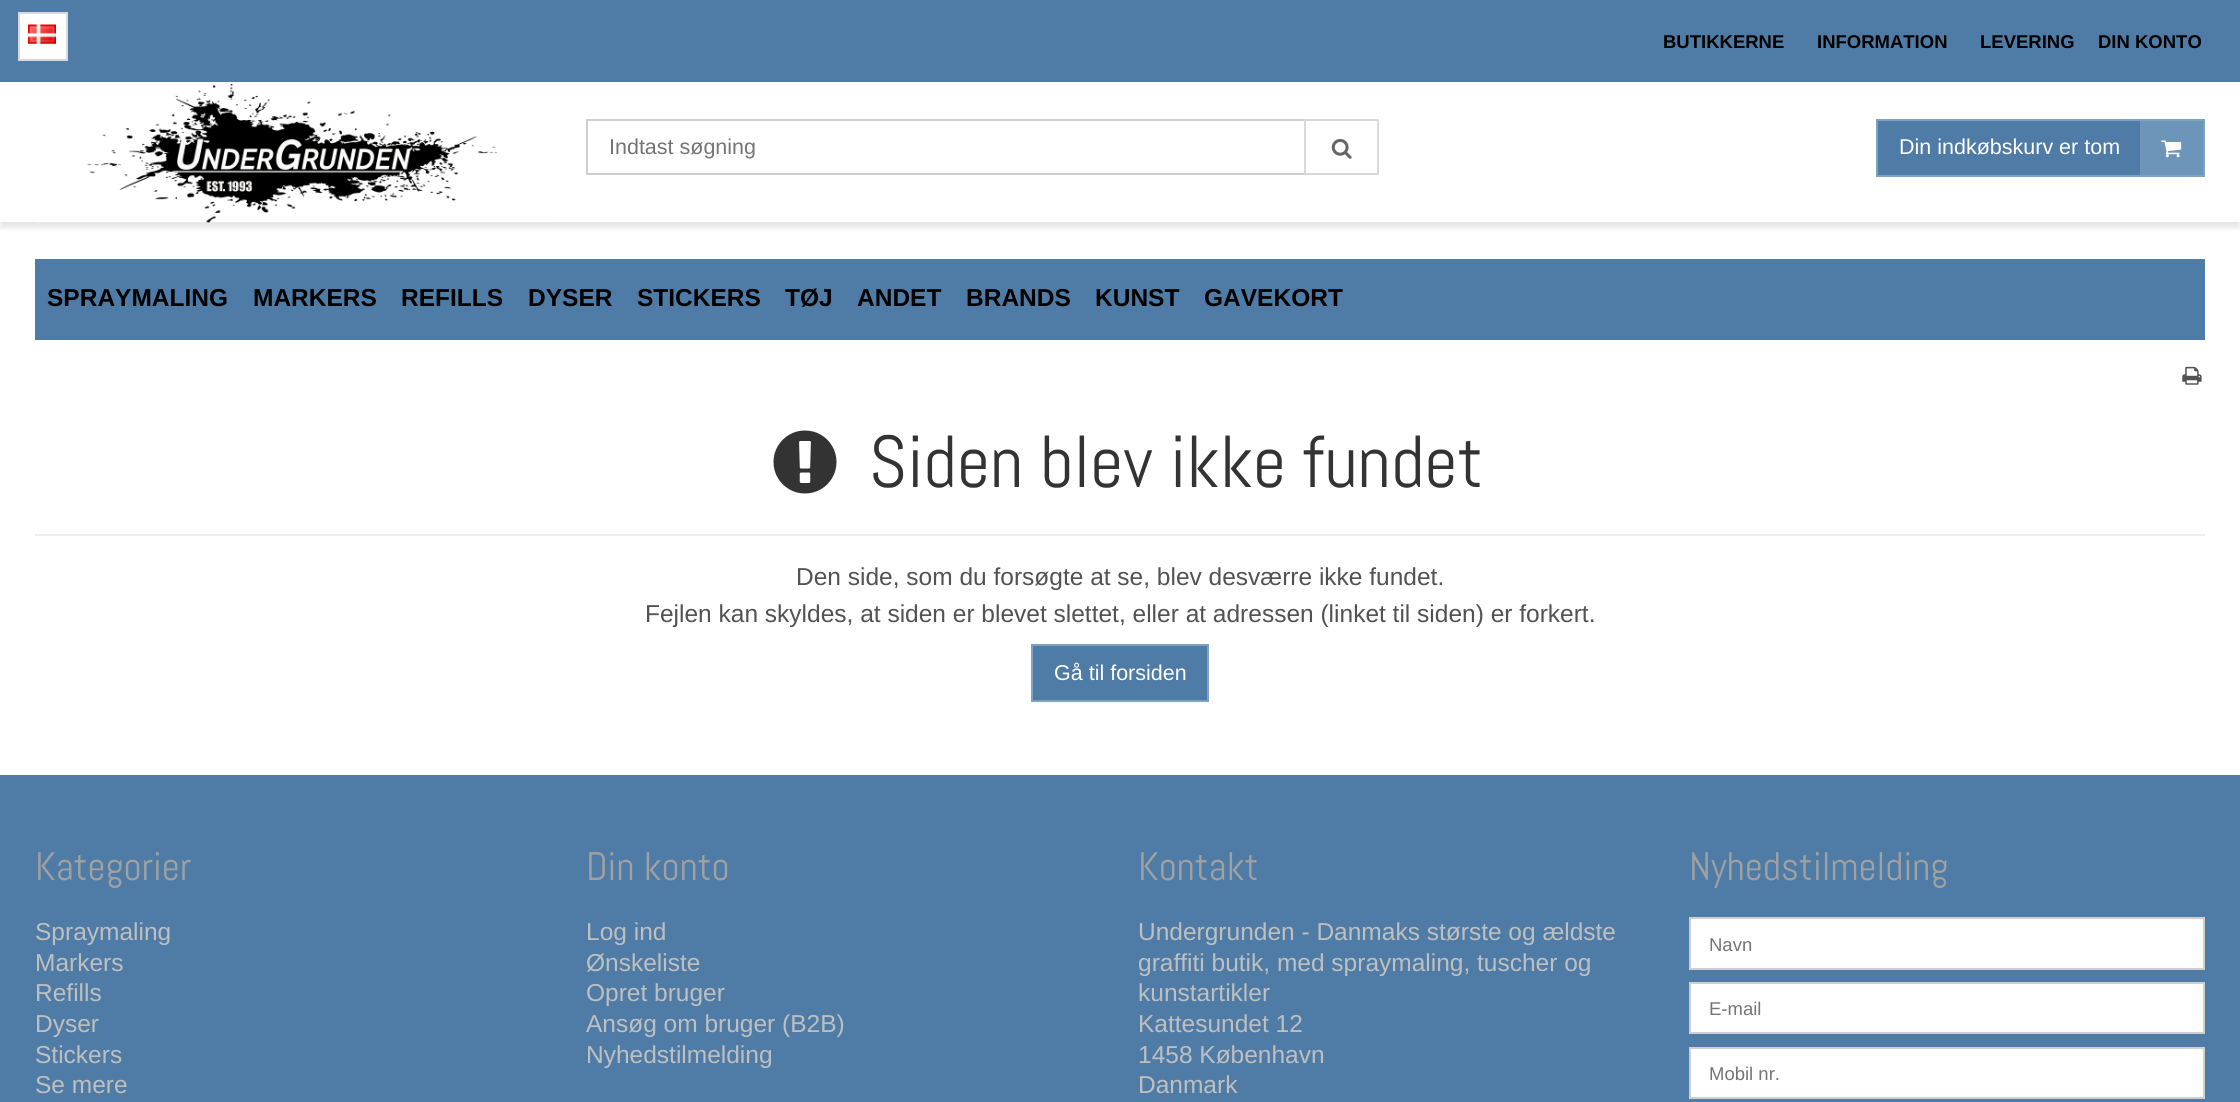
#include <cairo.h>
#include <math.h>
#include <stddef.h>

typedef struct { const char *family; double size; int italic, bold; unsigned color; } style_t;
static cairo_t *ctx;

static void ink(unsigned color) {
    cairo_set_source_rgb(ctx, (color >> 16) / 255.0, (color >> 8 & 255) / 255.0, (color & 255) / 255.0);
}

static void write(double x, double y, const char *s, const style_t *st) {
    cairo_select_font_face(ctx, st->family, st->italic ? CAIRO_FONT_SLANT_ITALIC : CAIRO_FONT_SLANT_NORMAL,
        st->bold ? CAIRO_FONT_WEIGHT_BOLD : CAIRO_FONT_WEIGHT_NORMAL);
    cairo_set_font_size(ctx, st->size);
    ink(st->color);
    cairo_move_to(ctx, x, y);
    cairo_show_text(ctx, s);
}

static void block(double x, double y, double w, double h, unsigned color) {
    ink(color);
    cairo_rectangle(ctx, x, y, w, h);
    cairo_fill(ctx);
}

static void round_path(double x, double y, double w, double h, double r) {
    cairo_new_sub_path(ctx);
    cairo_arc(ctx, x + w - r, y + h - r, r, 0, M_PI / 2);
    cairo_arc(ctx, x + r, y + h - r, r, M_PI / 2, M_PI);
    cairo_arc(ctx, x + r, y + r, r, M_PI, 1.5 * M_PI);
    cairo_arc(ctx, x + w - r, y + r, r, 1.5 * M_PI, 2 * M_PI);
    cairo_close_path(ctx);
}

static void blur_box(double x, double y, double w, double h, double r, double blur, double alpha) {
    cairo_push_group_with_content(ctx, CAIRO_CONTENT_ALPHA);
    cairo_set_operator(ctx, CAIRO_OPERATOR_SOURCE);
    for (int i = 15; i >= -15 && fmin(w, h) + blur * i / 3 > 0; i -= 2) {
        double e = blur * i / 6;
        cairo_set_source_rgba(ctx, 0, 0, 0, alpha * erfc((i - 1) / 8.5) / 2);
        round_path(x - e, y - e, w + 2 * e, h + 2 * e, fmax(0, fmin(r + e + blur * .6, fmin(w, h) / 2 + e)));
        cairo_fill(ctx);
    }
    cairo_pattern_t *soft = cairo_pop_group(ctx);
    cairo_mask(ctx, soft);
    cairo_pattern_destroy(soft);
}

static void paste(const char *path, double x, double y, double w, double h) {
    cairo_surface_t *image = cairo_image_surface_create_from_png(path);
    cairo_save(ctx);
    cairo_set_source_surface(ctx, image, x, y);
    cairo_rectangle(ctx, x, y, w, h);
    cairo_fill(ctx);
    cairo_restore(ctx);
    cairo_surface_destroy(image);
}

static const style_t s1 = {"Liberation Sans", 18.5, 0, 1, 0x000000};
static const style_t s2 = {"Liberation Sans", 21.5, 0, 0, 0x757575};
static const style_t s3 = {"Liberation Sans", 21.5, 0, 0, 0xffffff};
static const style_t s4 = {"Liberation Sans", 24.5, 0, 1, 0x000000};
static const style_t s5 = {"Abel", 73.5, 0, 0, 0x333333};
static const style_t s6 = {"Liberation Sans", 24.5, 0, 0, 0x525252};
static const style_t s7 = {"Abel", 39.75, 0, 0, 0xa1a1a1};
static const style_t s8 = {"Liberation Sans", 24.5, 0, 0, 0xbfbfbf};
static const style_t s9 = {"Liberation Sans", 18.5, 0, 0, 0x757575};

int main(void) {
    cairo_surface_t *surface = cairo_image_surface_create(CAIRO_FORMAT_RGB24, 2240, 1102);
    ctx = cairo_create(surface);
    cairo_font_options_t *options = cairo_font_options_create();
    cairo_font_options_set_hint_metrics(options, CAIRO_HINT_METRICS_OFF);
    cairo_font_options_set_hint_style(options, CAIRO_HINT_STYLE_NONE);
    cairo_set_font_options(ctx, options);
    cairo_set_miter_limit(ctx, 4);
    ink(0xffffff);
    cairo_paint(ctx);
    block(0, 0, 2240, 82, 0x4e7ca6);
    ink(0xffffff);
    cairo_rectangle(ctx, 19, 13, 48, 47);
    cairo_fill_preserve(ctx);
    ink(0xd9d9d9);
    cairo_stroke(ctx);
    paste("pic1.png", 28, 24, 28, 20);
    write(1663, 48, "BUTIKKERNE", &s1);
    write(1817, 48, "INFORMATION", &s1);
    write(1980, 48, "LEVERING", &s1);
    write(2098, 48, "DIN KONTO", &s1);
    ink(0x000000);
    blur_box(0, 88, 2240, 140, 0, 2.5, 0.1);
    block(0, 85, 2240, 137, 0xffffff);
    paste("pic2.png", 35, 84, 516, 139);
    block(586, 119, 720, 2, 0xcfcfcf);
    block(586, 173, 720, 2, 0xcfcfcf);
    block(586, 119, 2, 56, 0xcfcfcf);
    write(609, 154, "Indtast søgning", &s2);
    cairo_rectangle(ctx, 1305, 120, 73, 54);
    ink(0xd9d9d9);
    cairo_stroke(ctx);
    paste("pic3.png", 1331, 138, 21, 21);
    block(1878, 121, 262, 54, 0x4e7ca6);
    cairo_rectangle(ctx, 1877, 120, 327, 56);
    ink(0x7ea2c2);
    cairo_stroke(ctx);
    write(1899, 154, "Din indkøbskurv er tom", &s3);
    block(2140, 121, 63, 54, 0x6d95ba);
    paste("pic4.png", 2161, 140, 21, 18);
    block(35, 259, 2170, 81, 0x4e7ca6);
    write(47, 306, "SPRAYMALING", &s4);
    write(253, 306, "MARKERS", &s4);
    write(401, 306, "REFILLS", &s4);
    write(528, 306, "DYSER", &s4);
    write(637, 306, "STICKERS", &s4);
    write(785, 306, "TØJ", &s4);
    write(857, 306, "ANDET", &s4);
    write(966, 306, "BRANDS", &s4);
    write(1095, 306, "KUNST", &s4);
    write(1204, 306, "GAVEKORT", &s4);
    paste("pic5.png", 2182, 366, 20, 19);
    block(35, 534, 2170, 2, 0xeeeeee);
    paste("pic6.png", 773, 430, 64, 64);
    write(869, 487, "Siden blev ikke fundet", &s5);
    write(796, 585, "Den side, som du forsøgte at se, blev desværre ikke fundet.", &s6);
    write(645, 622, "Fejlen kan skyldes, at siden er blevet slettet, eller at adressen (linket til siden) er forkert.", &s6);
    ink(0x4e7ca6);
    cairo_rectangle(ctx, 1032, 645, 176, 56);
    cairo_fill_preserve(ctx);
    ink(0x7ea2c2);
    cairo_stroke(ctx);
    write(1054, 680, "Gå til forsiden", &s3);
    block(0, 775, 2240, 327, 0x4e7ca6);
    write(35, 880, "Kategorier", &s7);
    write(35, 940, "Spraymaling", &s8);
    write(35, 971, "Markers", &s8);
    write(35, 1001, "Refills", &s8);
    write(35, 1032, "Dyser", &s8);
    write(35, 1063, "Stickers", &s8);
    write(35, 1093, "Se mere", &s8);
    write(586, 880, "Din konto", &s7);
    write(586, 940, "Log ind", &s8);
    write(586, 971, "Ønskeliste", &s8);
    write(586, 1001, "Opret bruger", &s8);
    write(586, 1032, "Ansøg om bruger (B2B)", &s8);
    write(586, 1063, "Nyhedstilmelding", &s8);
    write(1138, 880, "Kontakt", &s7);
    write(1138, 940, "Undergrunden - Danmaks største og ældste", &s8);
    write(1138, 971, "graffiti butik, med spraymaling, tuscher og", &s8);
    write(1138, 1001, "kunstartikler", &s8);
    write(1138, 1032, "Kattesundet 12", &s8);
    write(1138, 1063, "1458 København", &s8);
    write(1138, 1093, "Danmark", &s8);
    write(1689, 880, "Nyhedstilmelding", &s7);
    ink(0xffffff);
    cairo_rectangle(ctx, 1690, 918, 514, 51);
    cairo_fill_preserve(ctx);
    ink(0xcfcfcf);
    cairo_stroke(ctx);
    write(1709, 951, "Navn", &s9);
    ink(0xffffff);
    cairo_rectangle(ctx, 1690, 983, 514, 50);
    cairo_fill_preserve(ctx);
    ink(0xcfcfcf);
    cairo_stroke(ctx);
    write(1709, 1015, "E-mail", &s9);
    ink(0xffffff);
    cairo_rectangle(ctx, 1690, 1048, 514, 50);
    cairo_fill_preserve(ctx);
    ink(0xcfcfcf);
    cairo_stroke(ctx);
    write(1709, 1080, "Mobil nr.", &s9);
    cairo_surface_write_to_png(surface, "screenshot.png");
    cairo_font_options_destroy(options);
    cairo_destroy(ctx);
    cairo_surface_destroy(surface);
    return 0;
}
